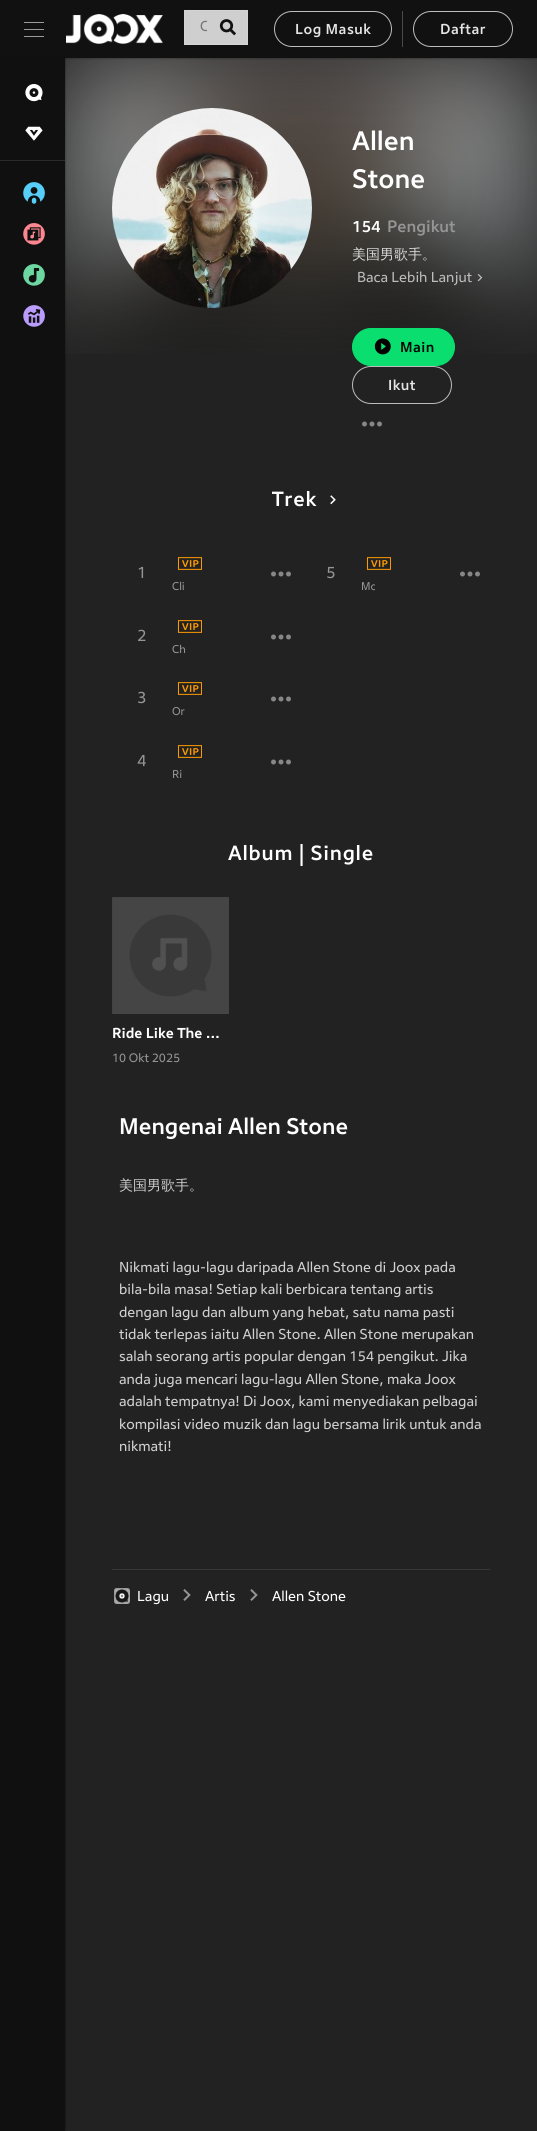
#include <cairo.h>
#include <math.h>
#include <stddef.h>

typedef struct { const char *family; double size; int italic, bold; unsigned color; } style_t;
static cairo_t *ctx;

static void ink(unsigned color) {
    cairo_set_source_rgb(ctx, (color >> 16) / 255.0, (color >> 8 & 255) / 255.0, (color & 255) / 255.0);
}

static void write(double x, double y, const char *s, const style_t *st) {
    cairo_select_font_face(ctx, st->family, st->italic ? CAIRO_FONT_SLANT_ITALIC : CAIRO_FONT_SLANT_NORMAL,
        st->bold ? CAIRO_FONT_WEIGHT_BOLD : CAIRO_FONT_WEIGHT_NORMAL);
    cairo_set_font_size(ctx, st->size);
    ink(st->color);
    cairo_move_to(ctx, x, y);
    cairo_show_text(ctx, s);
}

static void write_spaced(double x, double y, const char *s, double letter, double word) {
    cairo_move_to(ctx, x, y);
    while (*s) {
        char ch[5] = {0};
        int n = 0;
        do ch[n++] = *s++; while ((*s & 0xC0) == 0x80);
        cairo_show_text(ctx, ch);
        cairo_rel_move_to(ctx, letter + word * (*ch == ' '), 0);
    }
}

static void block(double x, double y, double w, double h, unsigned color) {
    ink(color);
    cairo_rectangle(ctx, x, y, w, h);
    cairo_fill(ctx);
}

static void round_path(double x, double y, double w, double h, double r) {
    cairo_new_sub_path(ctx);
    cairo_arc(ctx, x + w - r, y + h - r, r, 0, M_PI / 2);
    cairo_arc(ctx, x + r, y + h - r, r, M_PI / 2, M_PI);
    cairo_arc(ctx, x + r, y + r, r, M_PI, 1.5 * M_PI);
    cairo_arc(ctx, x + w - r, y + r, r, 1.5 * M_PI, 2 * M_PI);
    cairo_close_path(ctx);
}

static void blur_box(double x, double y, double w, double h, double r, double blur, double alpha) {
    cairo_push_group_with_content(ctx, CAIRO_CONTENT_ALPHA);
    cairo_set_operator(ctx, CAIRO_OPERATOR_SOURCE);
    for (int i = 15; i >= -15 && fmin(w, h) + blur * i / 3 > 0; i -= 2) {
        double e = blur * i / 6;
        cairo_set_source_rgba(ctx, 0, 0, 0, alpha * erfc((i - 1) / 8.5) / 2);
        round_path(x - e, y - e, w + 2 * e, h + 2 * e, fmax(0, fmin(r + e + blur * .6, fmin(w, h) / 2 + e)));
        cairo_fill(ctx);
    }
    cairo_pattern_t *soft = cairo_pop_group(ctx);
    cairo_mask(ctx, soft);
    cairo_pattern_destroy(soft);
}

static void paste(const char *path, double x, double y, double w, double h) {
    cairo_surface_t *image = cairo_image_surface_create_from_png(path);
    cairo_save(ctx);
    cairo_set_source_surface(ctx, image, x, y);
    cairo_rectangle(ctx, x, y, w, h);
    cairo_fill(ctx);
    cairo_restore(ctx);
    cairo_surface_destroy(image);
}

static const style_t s1 = {"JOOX", 14, 0, 0, 0x757575};
static const style_t s2 = {"JOOX Medium", 26, 0, 0, 0xffffff};
static const style_t s3 = {"JOOX Medium", 16, 0, 0, 0xffffff};
static const style_t s4 = {"JOOX Medium", 16, 0, 0, 0x959595};
static const style_t s5 = {"WenQuanYi Zen Hei Medium", 14, 0, 0, 0xdcdbdb};
static const style_t s6 = {"JOOX", 14, 0, 0, 0xbcbcbc};
static const style_t s7 = {"JOOX", 16, 0, 0, 0x959595};
static const style_t s8 = {"JOOX", 11, 0, 0, 0x959595};
static const style_t s9 = {"JOOX", 14, 0, 1, 0xffffff};
static const style_t s10 = {"JOOX", 12, 0, 0, 0x959595};
static const style_t s11 = {"JOOX Medium", 22, 0, 0, 0xffffff};
static const style_t s12 = {"WenQuanYi Zen Hei Medium", 14, 0, 0, 0xd0d0d0};
static const style_t s13 = {"JOOX", 14, 0, 0, 0xd0d0d0};
static const style_t s14 = {"JOOX", 14, 0, 0, 0xffffff};

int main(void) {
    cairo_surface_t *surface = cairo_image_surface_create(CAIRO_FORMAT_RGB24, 537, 2131);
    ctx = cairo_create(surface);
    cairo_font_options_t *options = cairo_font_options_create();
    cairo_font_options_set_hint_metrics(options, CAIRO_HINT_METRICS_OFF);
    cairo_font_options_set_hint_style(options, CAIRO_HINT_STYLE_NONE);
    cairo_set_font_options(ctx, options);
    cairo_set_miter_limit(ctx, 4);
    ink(0x222222);
    cairo_paint(ctx);
    paste("pic9.png", 65, 58, 472, 296);
    ink(0x000000);
    blur_box(0, 1, 537, 58, 0, 0.5, 0.2);
    block(0, 0, 537, 58, 0x111111);
    block(24, 22, 20, 1, 0x9b9b9b);
    block(24, 29, 20, 1, 0x9b9b9b);
    block(24, 36, 20, 1, 0x9b9b9b);
    paste("pic1.png", 66, 14, 97, 30);
    ink(0xcfcfcf);
    cairo_rectangle(ctx, 184.5, 10.5, 63, 34);
    cairo_fill_preserve(ctx);
    ink(0xd4d4d4);
    cairo_set_line_width(ctx, 1);
    cairo_stroke(ctx);
    cairo_save(ctx);
    cairo_rectangle(ctx, 200, 20, 7, 15);
    cairo_clip(ctx);
    write(200, 31, "C", &s1);
    cairo_restore(ctx);
    paste("pic2.png", 219, 19, 17, 17);
    round_path(274.5, 11.5, 117, 35, 17.5);
    ink(0xbcbcbc);
    cairo_stroke(ctx);
    cairo_select_font_face(ctx, "JOOX Medium", CAIRO_FONT_SLANT_NORMAL, CAIRO_FONT_WEIGHT_NORMAL);
    cairo_set_font_size(ctx, 14);
    ink(0xe5e5e5);
    write_spaced(295, 34, "Log Masuk", 0.5, 0);
    block(402, 11, 1, 36, 0x4a4a4a);
    round_path(413.5, 11.5, 99, 35, 17.5);
    ink(0xbcbcbc);
    cairo_stroke(ctx);
    ink(0xe5e5e5);
    write_spaced(440, 34, "Daftar", 0.5, 0);
    ink(0x000000);
    blur_box(1, 58, 65, 2073, 0, 0.5, 0.2);
    block(0, 58, 65, 2073, 0x101010);
    block(0, 160, 65, 1, 0x2b2b2b);
    paste("pic3.png", 25, 84, 18, 18);
    paste("pic4.png", 25, 126, 18, 15);
    paste("pic5.png", 23, 182, 22, 22);
    paste("pic6.png", 23, 223, 22, 22);
    paste("pic7.png", 23, 264, 22, 22);
    paste("pic8.png", 23, 305, 22, 22);
    paste("pic10.png", 112, 108, 200, 200);
    write(352, 150, "Allen", &s2);
    write(352, 188, "Stone", &s2);
    write(352, 232, "154", &s3);
    write(387, 232, "Pengikut", &s4);
    write(352, 259, "美国男歌手。", &s5);
    write(357, 282, "Baca Lebih Lanjut", &s6);
    paste("pic11.png", 477, 274, 6, 8);
    ink(0x09de6e);
    round_path(352.5, 328.5, 102, 37, 18.5);
    cairo_fill_preserve(ctx);
    cairo_stroke(ctx);
    paste("pic12.png", 374, 338, 17, 17);
    cairo_select_font_face(ctx, "JOOX Medium", CAIRO_FONT_SLANT_NORMAL, CAIRO_FONT_WEIGHT_NORMAL);
    ink(0x000000);
    write_spaced(400, 352, "Main", 0.5, 0);
    round_path(352.5, 366.5, 99, 37, 18.5);
    ink(0xbcbcbc);
    cairo_stroke(ctx);
    ink(0xe5e5e5);
    write_spaced(388, 390, "Ikut", 0.5, 0);
    paste("pic13.png", 362, 421, 20, 6);
    cairo_set_font_size(ctx, 20);
    ink(0xffffff);
    write_spaced(272, 506, "Trek", 0.75, 0);
    paste("pic14.png", 330, 495, 6, 10);
    write(137, 578, "1", &s7);
    paste("pic13.png", 271, 571, 20, 6);
    paste("pic15.png", 177, 557, 25, 13);
    write(172, 590, "Cli", &s8);
    write(326, 578, "5", &s7);
    paste("pic13.png", 460, 571, 20, 6);
    paste("pic15.png", 366, 557, 25, 13);
    cairo_save(ctx);
    cairo_rectangle(ctx, 361, 579, 14, 17);
    cairo_clip(ctx);
    write(361, 590, "Mo", &s8);
    cairo_restore(ctx);
    write(137, 641, "2", &s7);
    paste("pic13.png", 271, 634, 20, 6);
    paste("pic15.png", 177, 620, 25, 13);
    write(172, 653, "Ch", &s8);
    write(137, 703, "3", &s7);
    paste("pic13.png", 271, 696, 20, 6);
    paste("pic15.png", 177, 682, 25, 13);
    write(172, 715, "Or", &s8);
    write(137, 766, "4", &s7);
    paste("pic13.png", 271, 759, 20, 6);
    paste("pic15.png", 177, 745, 25, 13);
    write(172, 778, "Ri", &s8);
    cairo_select_font_face(ctx, "JOOX Medium", CAIRO_FONT_SLANT_NORMAL, CAIRO_FONT_WEIGHT_NORMAL);
    cairo_set_font_size(ctx, 20);
    ink(0xffffff);
    write_spaced(228, 860, "Album | Single", 0.75, 0);
    paste("pic16.png", 112, 897, 117, 117);
    write(112, 1038, "Ride Like The …", &s9);
    write(112, 1062, "10 Okt 2025", &s10);
    write(119, 1134, "Mengenai Allen Stone", &s11);
    write(119, 1190, "美国男歌手。", &s12);
    write(119, 1272, "Nikmati lagu-lagu daripada Allen Stone di Joox pada", &s13);
    write(119, 1294, "bila-bila masa! Setiap kali berbicara tentang artis", &s13);
    write(119, 1317, "dengan lagu dan album yang hebat, satu nama pasti", &s13);
    write(119, 1339, "tidak terlepas iaitu Allen Stone. Allen Stone merupakan", &s13);
    write(119, 1361, "salah seorang artis popular dengan 154 pengikut. Jika", &s13);
    write(119, 1384, "anda juga mencari lagu-lagu Allen Stone, maka Joox", &s13);
    write(119, 1406, "adalah tempatnya! Di Joox, kami menyediakan pelbagai", &s13);
    write(119, 1429, "kompilasi video muzik dan lagu bersama lirik untuk anda", &s13);
    write(119, 1451, "nikmati!", &s13);
    block(112, 1569, 378, 1, 0x373737);
    paste("pic17.png", 114, 1588, 16, 16);
    write(137, 1601, "Lagu", &s14);
    paste("pic18.png", 183, 1589, 8, 12);
    write(205, 1601, "Artis", &s14);
    paste("pic18.png", 250, 1589, 8, 12);
    write(272, 1601, "Allen Stone", &s14);
    cairo_surface_write_to_png(surface, "screenshot.png");
    cairo_font_options_destroy(options);
    cairo_destroy(ctx);
    cairo_surface_destroy(surface);
    return 0;
}
